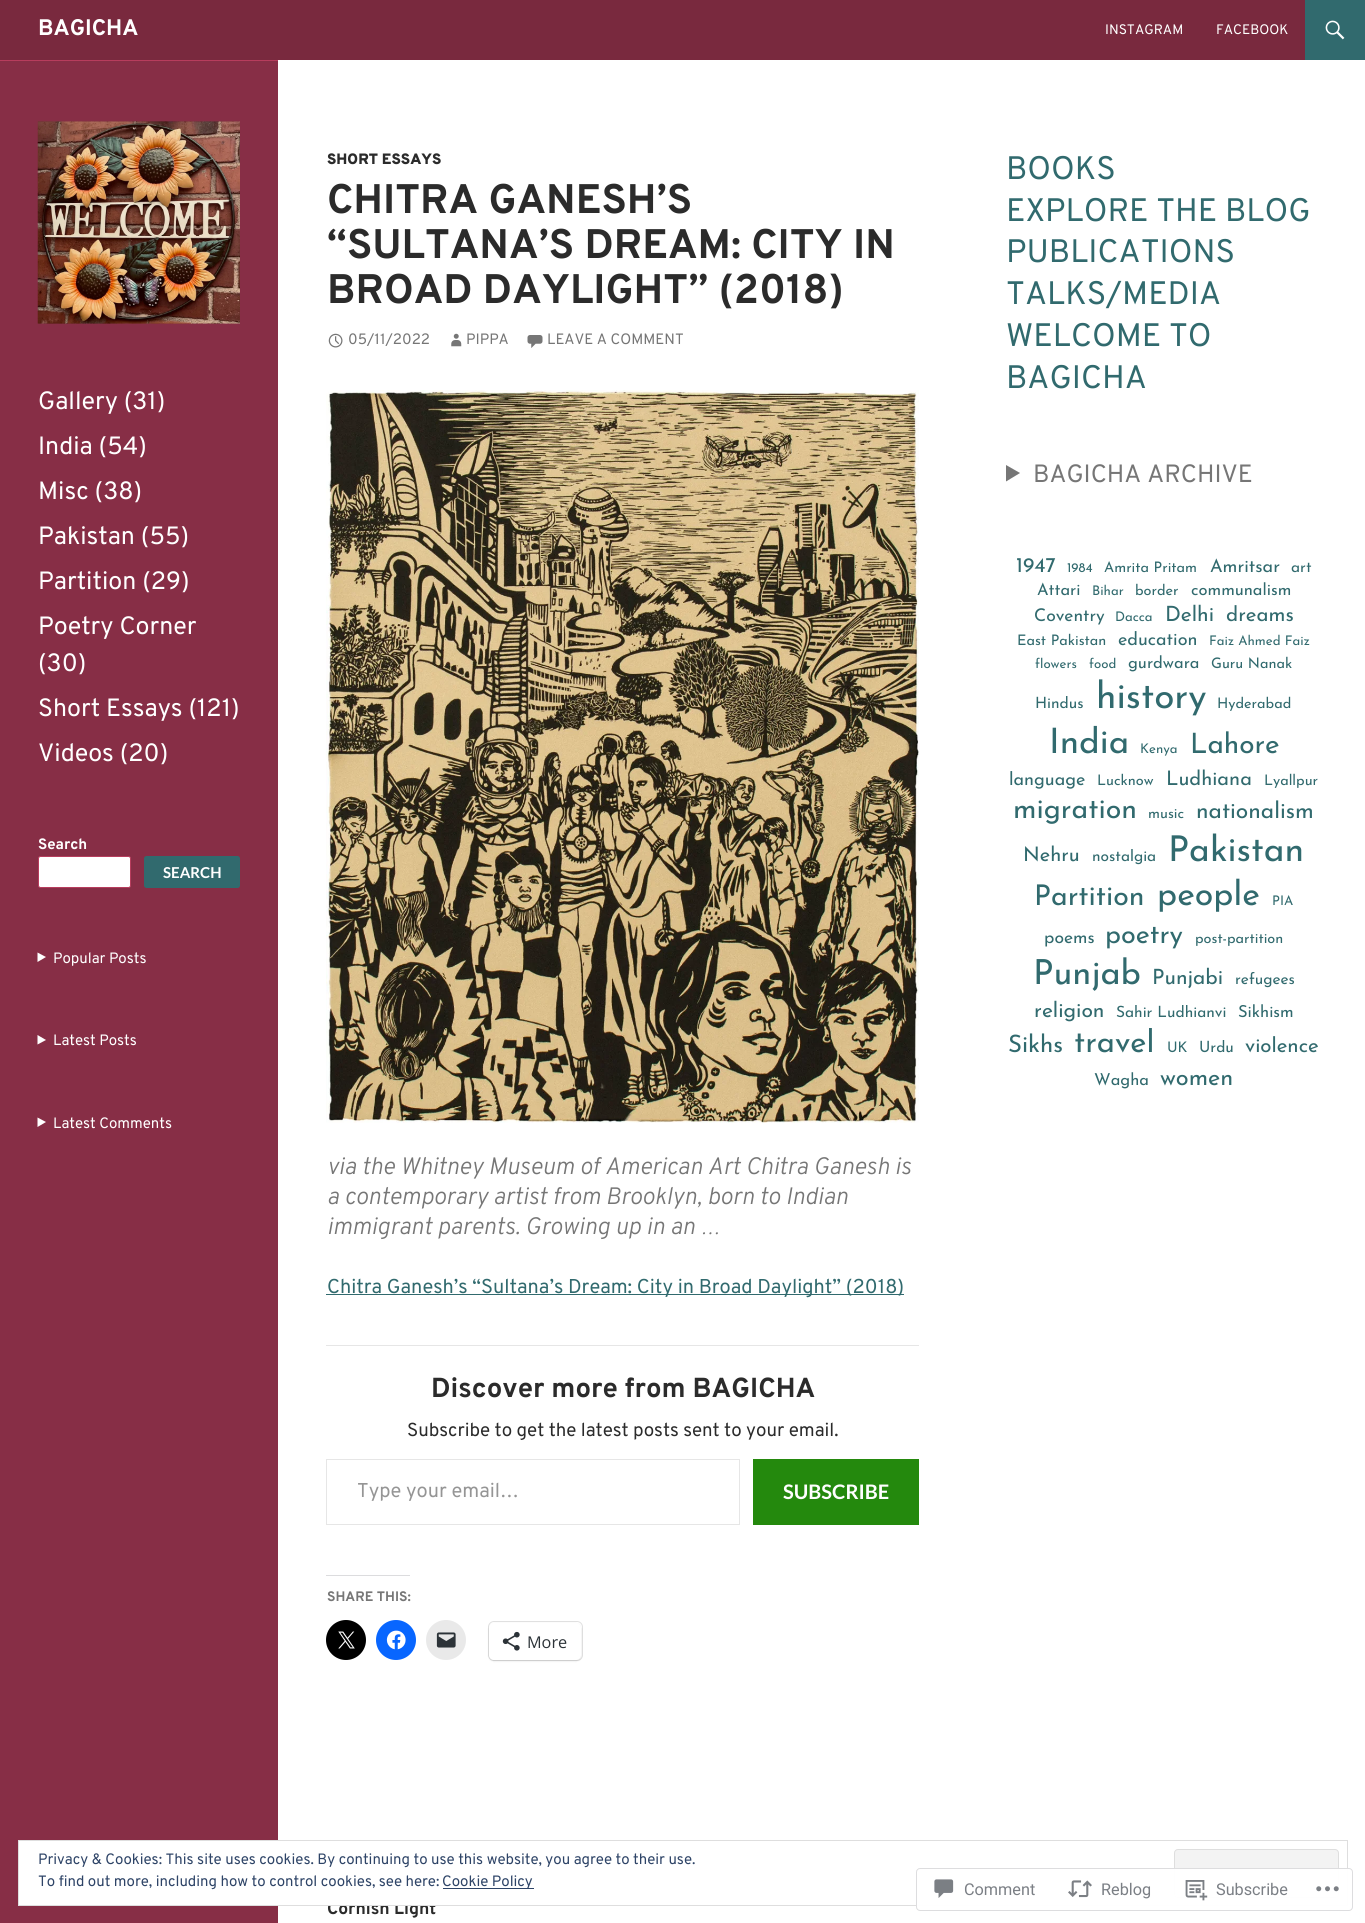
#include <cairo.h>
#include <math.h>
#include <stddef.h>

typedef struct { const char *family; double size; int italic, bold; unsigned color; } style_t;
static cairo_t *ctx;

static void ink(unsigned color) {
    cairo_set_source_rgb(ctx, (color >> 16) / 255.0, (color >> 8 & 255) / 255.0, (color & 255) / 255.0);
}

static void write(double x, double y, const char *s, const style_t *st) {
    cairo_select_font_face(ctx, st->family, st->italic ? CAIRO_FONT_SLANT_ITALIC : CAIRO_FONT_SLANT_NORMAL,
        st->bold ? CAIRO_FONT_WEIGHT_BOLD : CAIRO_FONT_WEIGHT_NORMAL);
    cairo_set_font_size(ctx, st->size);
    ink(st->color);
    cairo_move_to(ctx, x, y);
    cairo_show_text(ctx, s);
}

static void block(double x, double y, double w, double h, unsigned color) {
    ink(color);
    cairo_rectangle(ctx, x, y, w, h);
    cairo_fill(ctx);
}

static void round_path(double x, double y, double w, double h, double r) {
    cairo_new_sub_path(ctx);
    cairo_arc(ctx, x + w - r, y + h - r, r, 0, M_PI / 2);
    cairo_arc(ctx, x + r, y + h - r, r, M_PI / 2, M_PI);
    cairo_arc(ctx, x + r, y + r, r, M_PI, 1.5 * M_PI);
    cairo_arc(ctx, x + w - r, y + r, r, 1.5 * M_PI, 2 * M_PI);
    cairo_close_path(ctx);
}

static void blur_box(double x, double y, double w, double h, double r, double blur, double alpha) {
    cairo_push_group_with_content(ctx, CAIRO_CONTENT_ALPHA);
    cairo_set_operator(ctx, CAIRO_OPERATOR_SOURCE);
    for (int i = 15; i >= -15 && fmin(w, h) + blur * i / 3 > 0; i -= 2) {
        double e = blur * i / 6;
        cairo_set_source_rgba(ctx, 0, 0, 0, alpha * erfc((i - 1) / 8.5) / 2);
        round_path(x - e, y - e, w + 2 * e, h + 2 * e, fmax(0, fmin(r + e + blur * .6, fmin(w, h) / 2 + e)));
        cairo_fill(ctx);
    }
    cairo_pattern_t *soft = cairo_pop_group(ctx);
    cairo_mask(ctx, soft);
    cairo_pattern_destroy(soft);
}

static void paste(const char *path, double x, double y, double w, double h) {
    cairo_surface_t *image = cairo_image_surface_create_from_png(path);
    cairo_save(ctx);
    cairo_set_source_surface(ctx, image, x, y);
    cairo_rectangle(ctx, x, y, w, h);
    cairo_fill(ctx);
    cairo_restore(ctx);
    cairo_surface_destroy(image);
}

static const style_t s1 = {"Overpass", 22.5, 0, 1, 0xffffff};
static const style_t s2 = {"Overpass", 13.75, 0, 0, 0xffffff};
static const style_t s3 = {"Overpass", 25, 0, 0, 0xffffff};
static const style_t s4 = {"Overpass", 15, 0, 1, 0xffffff};
static const style_t s5 = {"Lato", 15, 0, 1, 0xffffff};
static const style_t s6 = {"Overpass", 15, 0, 0, 0xffffff};
static const style_t s7 = {"Overpass Black", 15, 0, 0, 0x2b2b2b};
static const style_t s8 = {"Overpass", 41.25, 0, 1, 0x2b2b2b};
static const style_t s9 = {"Overpass", 15, 0, 0, 0x767676};
static const style_t s10 = {"Overpass Light", 23.75, 1, 0, 0x767676};
static const style_t s11 = {"Overpass", 20, 0, 0, 0x316a6e};
static const style_t s12 = {"Overpass", 27.5, 0, 1, 0x2b2b2b};
static const style_t s13 = {"Overpass", 18.75, 0, 0, 0x2b2b2b};
static const style_t s14 = {"Overpass", 20, 0, 0, 0x959595};
static const style_t s15 = {"Lato", 20, 0, 1, 0xffffff};
static const style_t s16 = {"Overpass", 13.75, 0, 1, 0x767676};
static const style_t s17 = {"Open Sans", 16.25, 0, 0, 0x2c3338};
static const style_t s18 = {"Overpass", 17.5, 0, 1, 0x2b2b2b};
static const style_t s19 = {"Overpass", 32.5, 0, 0, 0x316a6e};
static const style_t s20 = {"Overpass", 25, 0, 0, 0x767676};
static const style_t s21 = {"Josefin Sans", 21, 0, 0, 0x316a6e};
static const style_t s22 = {"Josefin Sans", 13.25, 0, 0, 0x316a6e};
static const style_t s23 = {"Josefin Sans", 14.5, 0, 0, 0x316a6e};
static const style_t s24 = {"Josefin Sans", 18, 0, 0, 0x316a6e};
static const style_t s25 = {"Josefin Sans", 15.5, 0, 0, 0x316a6e};
static const style_t s26 = {"Josefin Sans", 16.5, 0, 0, 0x316a6e};
static const style_t s27 = {"Josefin Sans", 17.5, 0, 0, 0x316a6e};
static const style_t s28 = {"Josefin Sans", 20.5, 0, 0, 0x316a6e};
static const style_t s29 = {"Josefin Sans", 37, 0, 0, 0x316a6e};
static const style_t s30 = {"Josefin Sans", 35, 0, 0, 0x316a6e};
static const style_t s31 = {"Josefin Sans", 28, 0, 0, 0x316a6e};
static const style_t s32 = {"Josefin Sans", 20, 0, 0, 0x316a6e};
static const style_t s33 = {"Josefin Sans", 28.5, 0, 0, 0x316a6e};
static const style_t s34 = {"Josefin Sans", 22.75, 0, 0, 0x316a6e};
static const style_t s35 = {"Josefin Sans", 35.5, 0, 0, 0x316a6e};
static const style_t s36 = {"Josefin Sans", 34, 0, 0, 0x316a6e};
static const style_t s37 = {"Josefin Sans", 27, 0, 0, 0x316a6e};
static const style_t s38 = {"Josefin Sans", 34.5, 0, 0, 0x316a6e};
static const style_t s39 = {"Josefin Sans", 24, 0, 0, 0x316a6e};
static const style_t s40 = {"Josefin Sans", 31, 0, 0, 0x316a6e};
static const style_t s41 = {"Josefin Sans", 23.5, 0, 0, 0x316a6e};
static const style_t s42 = {"Overpass", 15, 0, 0, 0x2e4467};
static const style_t s43 = {"Roboto", 16.25, 0, 0, 0x7b7f85};

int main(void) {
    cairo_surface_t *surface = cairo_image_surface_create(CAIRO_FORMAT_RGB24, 1365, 1923);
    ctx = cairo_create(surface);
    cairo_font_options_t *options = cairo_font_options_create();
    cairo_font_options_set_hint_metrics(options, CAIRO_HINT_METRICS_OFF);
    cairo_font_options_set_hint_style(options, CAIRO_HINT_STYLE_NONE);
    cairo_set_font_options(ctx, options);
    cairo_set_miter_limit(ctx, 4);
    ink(0xffffff);
    cairo_paint(ctx);
    block(0, 0, 1305, 60, 0x79293e);
    write(38, 35, "BAGICHA", &s1);
    write(1105, 34, "INSTAGRAM", &s2);
    write(1216, 34, "FACEBOOK", &s2);
    block(1305, 0, 60, 60, 0x316a6e);
    paste("pic1.png", 1325, 20, 20, 20);
    block(0, 61, 278, 1862, 0x872e46);
    block(0, 60, 278, 1, 0xb73d5d);
    block(38, 121, 202, 203, 0x7a293f);
    paste("pic2.png", 37, 121, 203, 203);
    write(38, 409, "Gallery (31)", &s3);
    write(38, 454, "India (54)", &s3);
    write(38, 499, "Misc (38)", &s3);
    write(38, 544, "Pakistan (55)", &s3);
    write(38, 589, "Partition (29)", &s3);
    write(38, 634, "Poetry Corner", &s3);
    write(38, 671, "(30)", &s3);
    write(38, 716, "Short Essays (121)", &s3);
    write(38, 761, "Videos (20)", &s3);
    write(38, 849, "Search", &s4);
    round_path(38.5, 856.5, 92, 31, 2);
    cairo_fill_preserve(ctx);
    ink(0xb73d5d);
    cairo_set_line_width(ctx, 1);
    cairo_stroke(ctx);
    ink(0x316a6e);
    round_path(144, 856, 96, 32, 2.5);
    cairo_fill(ctx);
    write(163, 878, "SEARCH", &s5);
    cairo_new_path(ctx);
    cairo_move_to(ctx, 37.5, 952.5);
    cairo_line_to(ctx, 46, 957);
    cairo_line_to(ctx, 37.5, 962);
    cairo_close_path(ctx);
    cairo_fill(ctx);
    write(53, 963, "Popular Posts", &s6);
    cairo_new_path(ctx);
    cairo_move_to(ctx, 37.5, 1035);
    cairo_line_to(ctx, 46, 1040);
    cairo_line_to(ctx, 37.5, 1044.5);
    cairo_close_path(ctx);
    cairo_fill(ctx);
    write(53, 1045, "Latest Posts", &s6);
    cairo_new_path(ctx);
    cairo_move_to(ctx, 37.5, 1117.5);
    cairo_line_to(ctx, 46, 1122);
    cairo_line_to(ctx, 37.5, 1127);
    cairo_close_path(ctx);
    cairo_fill(ctx);
    write(53, 1128, "Latest Comments", &s6);
    write(327, 164, "SHORT ESSAYS", &s7);
    write(327, 213, "CHITRA GANESH’S", &s8);
    write(327, 258, "“SULTANA’S DREAM: CITY IN", &s8);
    write(327, 303, "BROAD DAYLIGHT” (2018)", &s8);
    paste("pic3.png", 328, 333, 15, 15);
    write(348, 344, "05/11/2022", &s9);
    paste("pic4.png", 451, 333, 11, 14);
    write(466, 344, "PIPPA", &s9);
    paste("pic5.png", 527, 335, 16, 13);
    write(547, 344, "LEAVE A COMMENT", &s9);
    paste("pic6.png", 326, 390, 593, 733);
    write(327, 1174, "via the Whitney Museum of American Art Chitra Ganesh is", &s10);
    write(327, 1204, "a contemporary artist from Brooklyn, born to Indian", &s10);
    write(327, 1234, "immigrant parents. Growing up in an …", &s10);
    block(326, 1294, 578, 1, 0x316a6e);
    write(327, 1293, "Chitra Ganesh’s “Sultana’s Dream: City in Broad Daylight” (2018)", &s11);
    block(326, 1345, 593, 1, 0xe6e6e6);
    write(431, 1397, "Discover more from BAGICHA", &s12);
    write(407, 1436, "Subscribe to get the latest posts sent to your email.", &s13);
    cairo_rectangle(ctx, 326.5, 1459.5, 413, 65);
    ink(0xe6e6e6);
    cairo_stroke(ctx);
    write(357, 1497, "Type your email…", &s14);
    block(753, 1459, 166, 66, 0x24890d);
    write(783, 1499, "SUBSCRIBE", &s15);
    block(326, 1575, 84, 1, 0xdcdcde);
    write(327, 1601, "SHARE THIS:", &s16);
    ink(0x000000);
    cairo_new_path(ctx);
    cairo_arc(ctx, 346, 1640, 20, 0, 2 * M_PI);
    cairo_fill(ctx);
    paste("pic7.png", 338, 1631, 17, 18);
    ink(0x0866ff);
    cairo_arc(ctx, 396, 1640, 20, 0, 2 * M_PI);
    cairo_fill(ctx);
    paste("pic8.png", 386, 1630, 20, 20);
    ink(0xe9e9e9);
    cairo_arc(ctx, 446, 1640, 20, 0, 2 * M_PI);
    cairo_fill(ctx);
    paste("pic9.png", 436, 1632, 20, 16);
    round_path(488.5, 1621.5, 94, 39, 5.5);
    ink(0xe0e0e0);
    cairo_stroke(ctx);
    ink(0x000000);
    blur_box(489, 1624, 92, 37, 5, 1, 0.12);
    ink(0xffffff);
    round_path(489, 1623, 92, 37, 5);
    cairo_fill(ctx);
    paste("pic10.png", 502, 1631, 18, 20);
    write(527, 1648, "More", &s17);
    write(327, 1914, "Cornish Light", &s18);
    write(1006, 179, "BOOKS", &s19);
    write(1006, 221, "EXPLORE THE BLOG", &s19);
    write(1006, 262, "PUBLICATIONS", &s19);
    write(1006, 304, "TALKS/MEDIA", &s19);
    write(1006, 346, "WELCOME TO", &s19);
    write(1006, 388, "BAGICHA", &s19);
    ink(0x767676);
    cairo_new_path(ctx);
    cairo_move_to(ctx, 1006, 465);
    cairo_line_to(ctx, 1020, 473);
    cairo_line_to(ctx, 1006, 481.5);
    cairo_close_path(ctx);
    cairo_fill(ctx);
    write(1033, 482, "BAGICHA ARCHIVE", &s20);
    write(1016, 572, "1947", &s21);
    write(1067, 572, "1984", &s22);
    write(1104, 572, "Amrita Pritam", &s23);
    write(1210, 572, "Amritsar", &s24);
    write(1291, 572, "art", &s25);
    write(1037, 595, "Attari", &s26);
    write(1092, 595, "Bihar", &s22);
    write(1135, 595, "border", &s23);
    write(1191, 595, "communalism", &s26);
    write(1034, 621, "Coventry", &s27);
    write(1115, 621, "Dacca", &s22);
    write(1165, 621, "Delhi", &s21);
    write(1226, 621, "dreams", &s28);
    write(1017, 645, "East Pakistan", &s23);
    write(1118, 645, "education", &s24);
    write(1209, 645, "Faiz Ahmed Faiz", &s22);
    write(1035, 668, "flowers", &s22);
    write(1089, 668, "food", &s22);
    write(1128, 668, "gurdwara", &s26);
    write(1211, 668, "Guru Nanak", &s23);
    write(1035, 708, "Hindus", &s25);
    write(1096, 708, "history", &s29);
    write(1217, 708, "Hyderabad", &s23);
    write(1049, 753, "India", &s30);
    write(1140, 753, "Kenya", &s22);
    write(1190, 753, "Lahore", &s31);
    write(1009, 785, "language", &s24);
    write(1097, 785, "Lucknow", &s23);
    write(1166, 785, "Ludhiana", &s32);
    write(1264, 785, "Lyallpur", &s23);
    write(1013, 818, "migration", &s33);
    write(1148, 818, "music", &s23);
    write(1196, 818, "nationalism", &s34);
    write(1023, 861, "Nehru", &s32);
    write(1092, 861, "nostalgia", &s25);
    write(1168, 861, "Pakistan", &s35);
    write(1034, 905, "Partition", &s33);
    write(1157, 905, "people", &s36);
    write(1272, 905, "PIA", &s22);
    write(1044, 943, "poems", &s27);
    write(1105, 943, "poetry", &s37);
    write(1195, 943, "post-partition", &s23);
    write(1033, 984, "Punjab", &s38);
    write(1152, 984, "Punjabi", &s21);
    write(1235, 984, "refugees", &s25);
    write(1034, 1017, "religion", &s21);
    write(1116, 1017, "Sahir Ludhianvi", &s25);
    write(1238, 1017, "Sikhism", &s26);
    write(1008, 1052, "Sikhs", &s39);
    write(1074, 1052, "travel", &s40);
    write(1167, 1052, "UK", &s23);
    write(1199, 1052, "Urdu", &s25);
    write(1245, 1052, "violence", &s28);
    write(1094, 1085, "Wagha", &s26);
    write(1160, 1085, "women", &s41);
    block(19, 1841, 415, 64, 0xffffff);
    cairo_rectangle(ctx, 18.5, 1840.5, 1329, 65);
    ink(0xdedede);
    cairo_stroke(ctx);
    write(38, 1864, "Privacy & Cookies: This site uses cookies. By continuing to use this website, you agree to their use.", &s42);
    ink(0xf3f3f3);
    round_path(1174.5, 1849.5, 164, 48, 3.5);
    cairo_fill_preserve(ctx);
    ink(0xdedede);
    cairo_stroke(ctx);
    write(38, 1886, "To find out more, including how to control cookies, see here:", &s42);
    block(443, 1888, 91, 1, 0x2e4467);
    write(442, 1886, "Cookie Policy", &s42);
    cairo_set_source_rgba(ctx, 1, 1, 1, 0.98);
    round_path(916, 1868, 437, 43, 4);
    cairo_fill(ctx);
    round_path(916.5, 1868.5, 436, 42, 3.5);
    cairo_set_source_rgba(ctx, 0.863, 0.863, 0.871, 0.98);
    cairo_stroke(ctx);
    paste("pic11.png", 934, 1879, 20, 19);
    write(964, 1895, "Comment", &s43);
    paste("pic12.png", 1068, 1880, 24, 18);
    write(1101, 1895, "Reblog", &s43);
    paste("pic13.png", 1185, 1880, 23, 21);
    write(1216, 1895, "Subscribe", &s43);
    paste("pic14.png", 1316, 1886, 23, 6);
    cairo_surface_write_to_png(surface, "screenshot.png");
    cairo_font_options_destroy(options);
    cairo_destroy(ctx);
    cairo_surface_destroy(surface);
    return 0;
}
